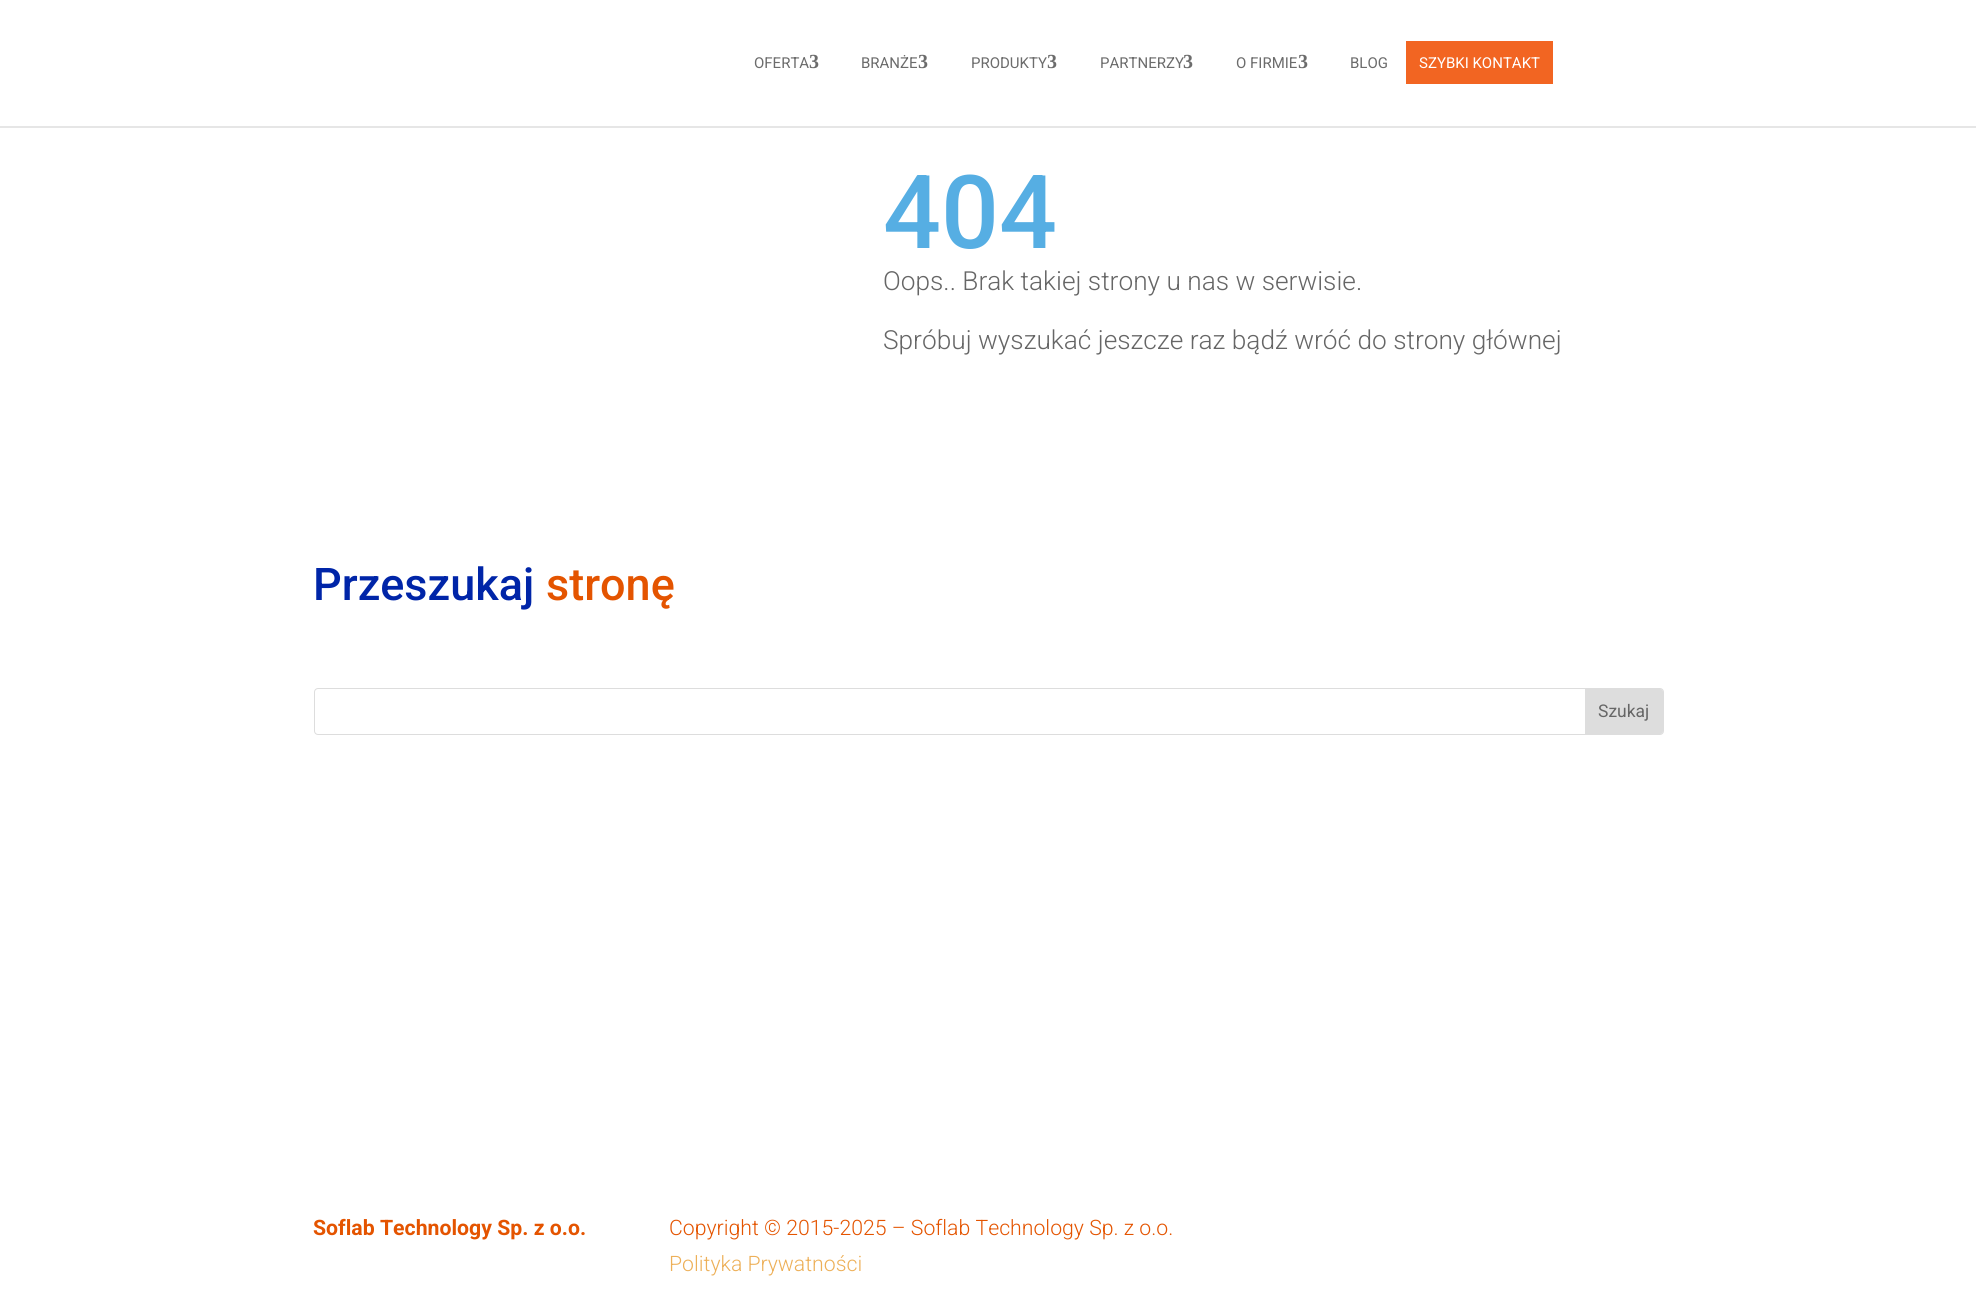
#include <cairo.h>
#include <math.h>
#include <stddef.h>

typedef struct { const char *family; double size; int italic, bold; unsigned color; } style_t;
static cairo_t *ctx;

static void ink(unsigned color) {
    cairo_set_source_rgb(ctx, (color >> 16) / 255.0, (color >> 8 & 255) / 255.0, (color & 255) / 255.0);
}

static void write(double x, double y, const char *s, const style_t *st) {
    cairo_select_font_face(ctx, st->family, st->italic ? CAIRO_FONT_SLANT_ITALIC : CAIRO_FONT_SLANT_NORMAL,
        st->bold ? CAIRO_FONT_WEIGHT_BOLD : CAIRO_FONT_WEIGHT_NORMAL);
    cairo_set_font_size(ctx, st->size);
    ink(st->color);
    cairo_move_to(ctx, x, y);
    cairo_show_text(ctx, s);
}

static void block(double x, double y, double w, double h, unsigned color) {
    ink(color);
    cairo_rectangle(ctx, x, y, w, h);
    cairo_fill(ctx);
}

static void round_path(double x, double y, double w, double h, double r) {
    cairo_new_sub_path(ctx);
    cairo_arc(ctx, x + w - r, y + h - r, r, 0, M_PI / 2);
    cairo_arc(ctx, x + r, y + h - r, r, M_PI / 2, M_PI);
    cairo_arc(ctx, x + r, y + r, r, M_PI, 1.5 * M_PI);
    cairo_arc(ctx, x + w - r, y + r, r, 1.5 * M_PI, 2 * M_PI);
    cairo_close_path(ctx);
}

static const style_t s1 = {"Roboto", 15, 0, 0, 0x6c6c6c};
static const style_t s2 = {"Liberation Serif", 20, 0, 1, 0x6c6c6c};
static const style_t s3 = {"Roboto", 15, 0, 0, 0xffffff};
static const style_t s4 = {"Roboto Medium", 102, 0, 0, 0x56aee3};
static const style_t s5 = {"Roboto Light", 26.25, 0, 0, 0x666666};
static const style_t s6 = {"Roboto Medium", 45, 0, 0, 0x0025a8};
static const style_t s7 = {"Roboto Medium", 45, 0, 0, 0xe45400};
static const style_t s8 = {"Roboto", 17.5, 0, 0, 0x666666};
static const style_t s9 = {"Roboto", 21.25, 0, 1, 0xe45400};
static const style_t s10 = {"Roboto Light", 21.25, 0, 0, 0xe45400};
static const style_t s11 = {"Roboto Light", 21.25, 0, 0, 0xedb059};

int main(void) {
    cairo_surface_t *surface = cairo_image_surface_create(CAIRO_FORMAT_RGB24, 1976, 1294);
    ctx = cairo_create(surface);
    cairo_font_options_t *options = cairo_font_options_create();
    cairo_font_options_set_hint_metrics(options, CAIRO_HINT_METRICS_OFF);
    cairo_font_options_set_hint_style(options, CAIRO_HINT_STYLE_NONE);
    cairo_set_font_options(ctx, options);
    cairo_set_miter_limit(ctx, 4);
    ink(0xffffff);
    cairo_paint(ctx);
    block(0, 126, 1976, 2, 0xe6e6e6);
    write(754, 68, "OFERTA", &s1);
    write(809, 68, "3", &s2);
    write(861, 68, "BRANŻE", &s1);
    write(918, 68, "3", &s2);
    write(971, 68, "PRODUKTY", &s1);
    write(1047, 68, "3", &s2);
    write(1100, 68, "PARTNERZY", &s1);
    write(1183, 68, "3", &s2);
    write(1236, 68, "O FIRMIE", &s1);
    write(1298, 68, "3", &s2);
    write(1350, 68, "BLOG", &s1);
    block(1406, 41, 147, 43, 0xf26522);
    write(1419, 68, "SZYBKI KONTAKT", &s3);
    write(883, 248, "404", &s4);
    write(883, 290, "Oops.. Brak takiej strony u nas w serwisie.", &s5);
    write(883, 349, "Spróbuj wyszukać jeszcze raz bądź wróć do strony głównej", &s5);
    write(313, 600, "Przeszukaj", &s6);
    write(546, 600, "stronę", &s7);
    round_path(314.5, 688.5, 1349, 46, 3.5);
    ink(0xdddddd);
    cairo_set_line_width(ctx, 1);
    cairo_stroke(ctx);
    cairo_new_path(ctx);
    cairo_move_to(ctx, 1585, 689);
    cairo_line_to(ctx, 1660.5, 689);
    cairo_curve_to(ctx, 1662, 689, 1663, 690, 1663, 691.5);
    cairo_line_to(ctx, 1663, 731.5);
    cairo_curve_to(ctx, 1663, 733, 1662, 734, 1660.5, 734);
    cairo_line_to(ctx, 1585, 734);
    cairo_close_path(ctx);
    cairo_fill(ctx);
    write(1598, 717, "Szukaj", &s8);
    write(313, 1235, "Soflab Technology Sp. z o.o.", &s9);
    write(669, 1235, "Copyright © 2015-2025 – Soflab Technology Sp. z o.o.", &s10);
    write(669, 1271, "Polityka Prywatności", &s11);
    cairo_surface_write_to_png(surface, "screenshot.png");
    cairo_font_options_destroy(options);
    cairo_destroy(ctx);
    cairo_surface_destroy(surface);
    return 0;
}
